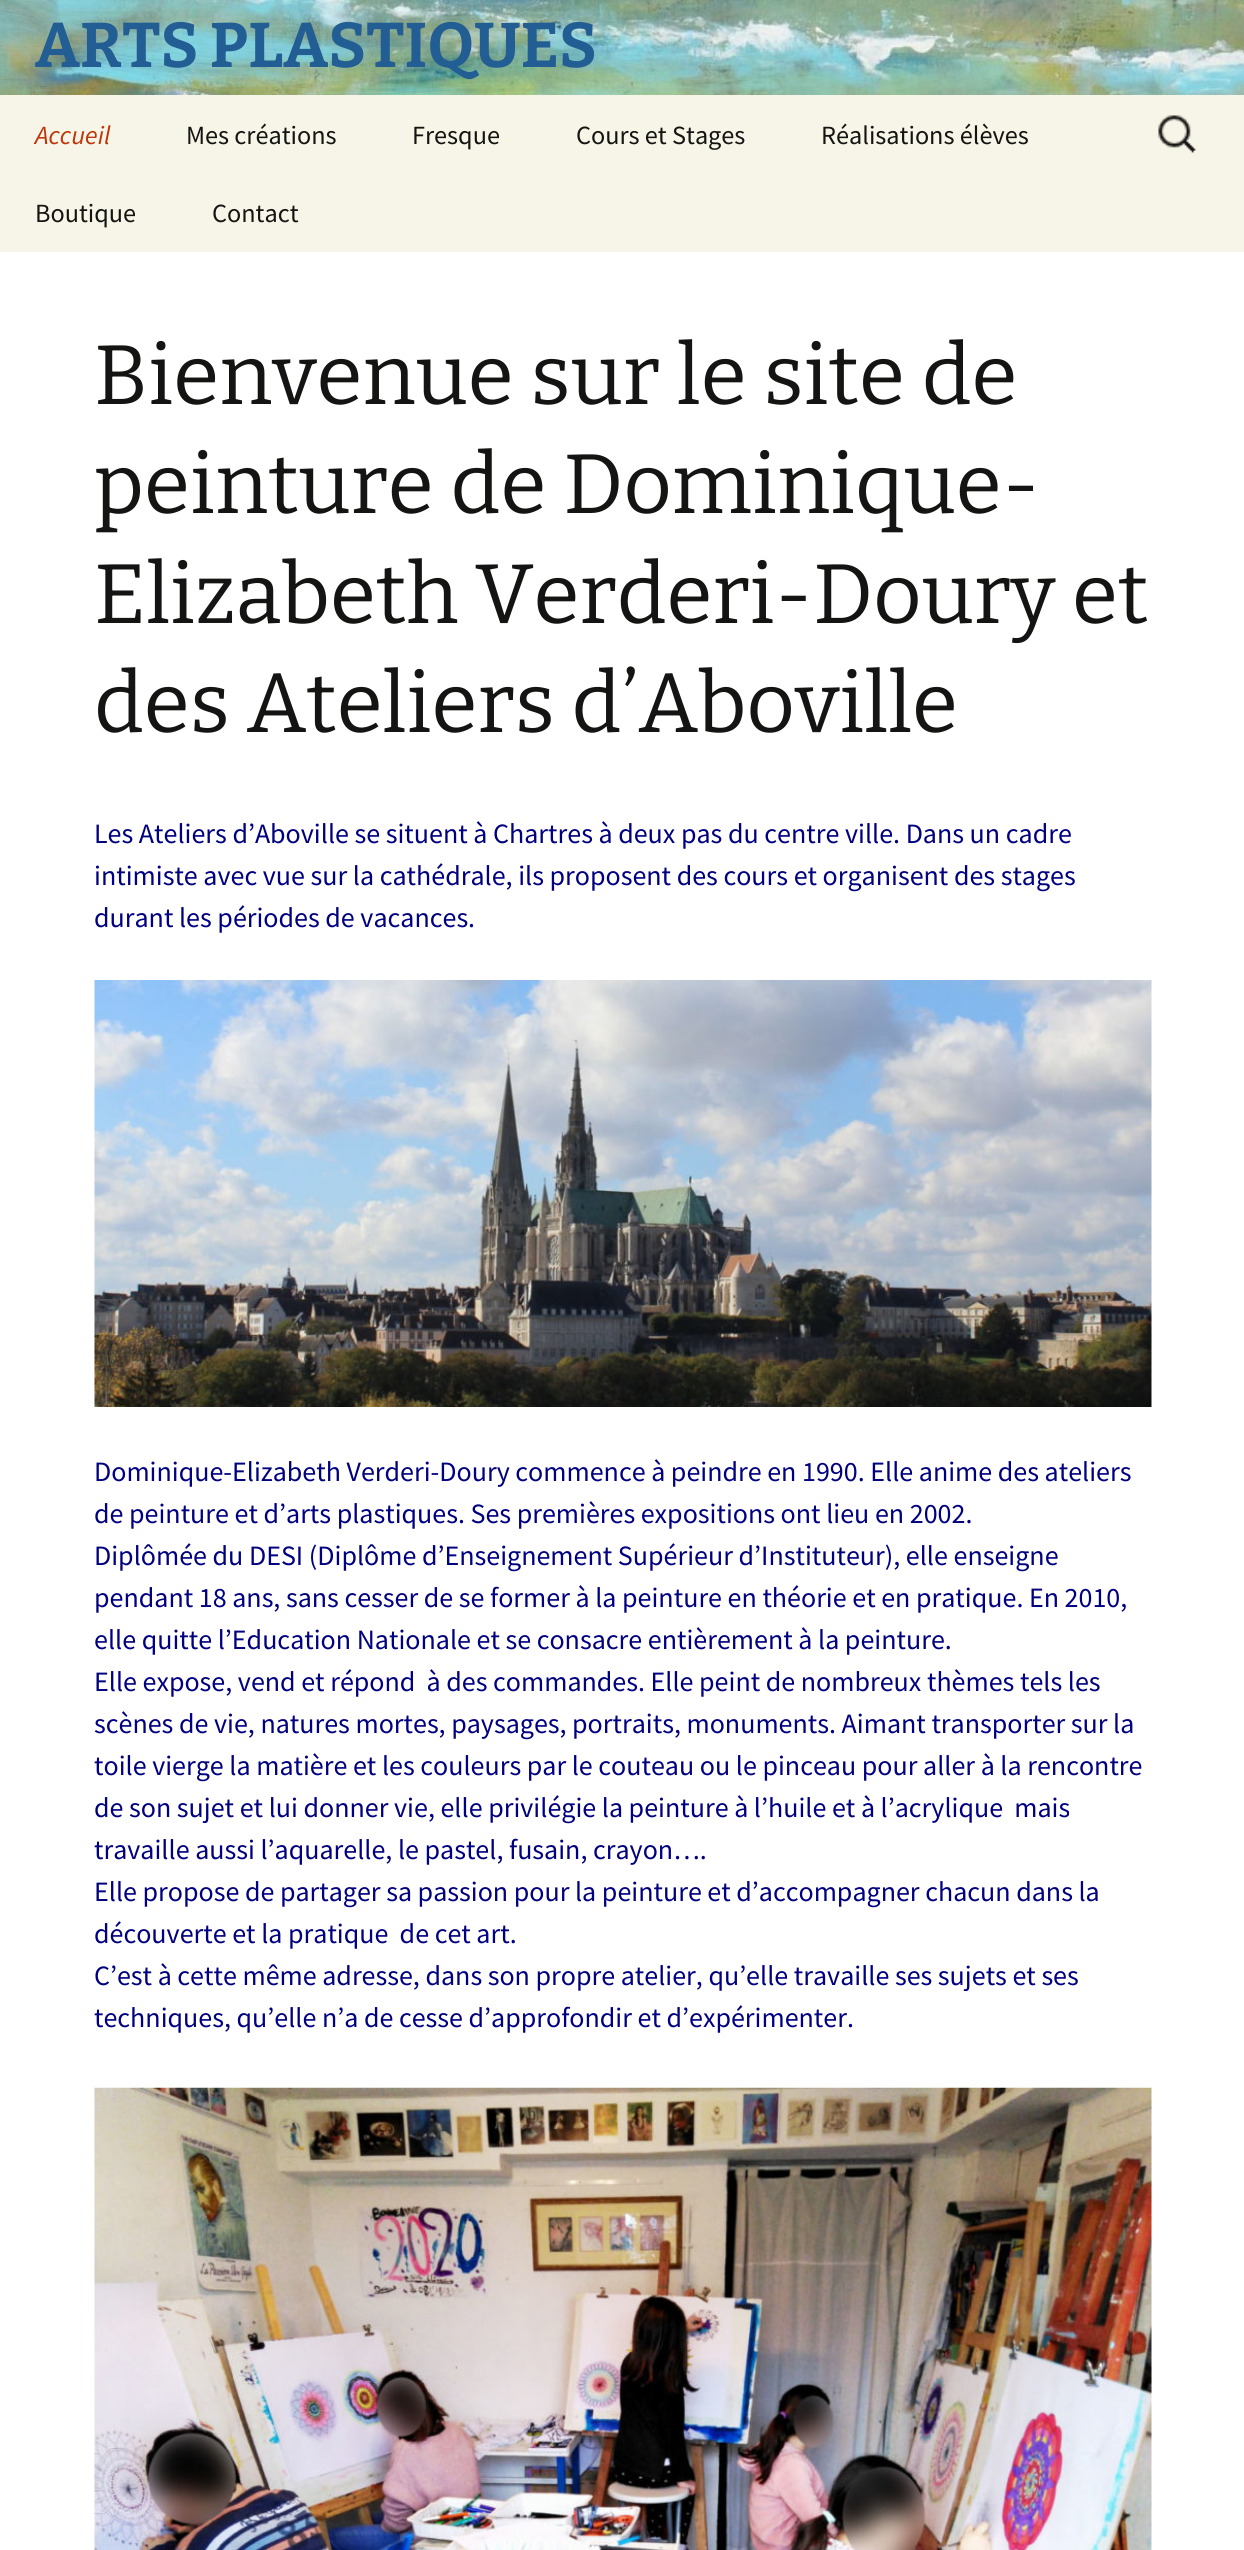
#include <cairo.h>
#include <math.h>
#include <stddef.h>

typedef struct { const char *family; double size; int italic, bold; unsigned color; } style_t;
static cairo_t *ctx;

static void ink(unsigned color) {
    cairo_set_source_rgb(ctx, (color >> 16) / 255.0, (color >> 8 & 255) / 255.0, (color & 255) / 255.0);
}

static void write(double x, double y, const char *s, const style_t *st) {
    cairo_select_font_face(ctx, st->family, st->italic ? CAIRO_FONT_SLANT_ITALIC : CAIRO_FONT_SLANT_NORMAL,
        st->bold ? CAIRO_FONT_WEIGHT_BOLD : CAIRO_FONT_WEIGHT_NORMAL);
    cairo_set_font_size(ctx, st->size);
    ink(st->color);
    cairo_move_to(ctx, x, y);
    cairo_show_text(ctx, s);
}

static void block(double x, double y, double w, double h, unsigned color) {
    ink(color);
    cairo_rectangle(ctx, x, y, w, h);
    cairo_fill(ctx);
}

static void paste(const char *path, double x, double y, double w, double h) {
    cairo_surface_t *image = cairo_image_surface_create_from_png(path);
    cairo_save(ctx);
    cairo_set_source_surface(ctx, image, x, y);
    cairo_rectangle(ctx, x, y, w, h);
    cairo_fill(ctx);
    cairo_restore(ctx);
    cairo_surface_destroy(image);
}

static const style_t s1 = {"Bitter Thin", 63, 0, 0, 0x225e93};
static const style_t s2 = {"Source Sans Pro", 26.25, 1, 0, 0xbc360a};
static const style_t s3 = {"Source Sans Pro", 26.25, 0, 0, 0x141412};
static const style_t s4 = {"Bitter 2 Thin", 84, 0, 0, 0x141412};
static const style_t s5 = {"Source Sans Pro", 28, 0, 0, 0x000080};

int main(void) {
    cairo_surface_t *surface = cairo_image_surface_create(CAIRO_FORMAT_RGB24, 1244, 2550);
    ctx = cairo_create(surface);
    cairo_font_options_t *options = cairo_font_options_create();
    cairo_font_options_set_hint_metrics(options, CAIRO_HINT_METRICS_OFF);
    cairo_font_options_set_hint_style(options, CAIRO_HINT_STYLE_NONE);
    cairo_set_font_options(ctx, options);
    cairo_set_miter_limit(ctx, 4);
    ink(0xffffff);
    cairo_paint(ctx);
    paste("pic1.png", 0, 0, 1244, 95);
    write(35, 67, "ARTS PLASTIQUES", &s1);
    block(0, 95, 1244, 157, 0xf7f5e7);
    write(35, 144, "Accueil", &s2);
    write(186, 144, "Mes créations", &s3);
    write(412, 144, "Fresque", &s3);
    write(576, 144, "Cours et Stages", &s3);
    write(821, 144, "Réalisations élèves", &s3);
    write(35, 222, "Boutique", &s3);
    write(212, 222, "Contact", &s3);
    paste("pic2.png", 1158, 115, 38, 38);
    write(94, 404, "Bienvenue sur le site de", &s4);
    write(94, 513, "peinture de Dominique-", &s4);
    write(94, 623, "Elizabeth Verderi-Doury et", &s4);
    write(94, 732, "des Ateliers d’Aboville", &s4);
    write(94, 843, "Les Ateliers d’Aboville se situent à Chartres à deux pas du centre ville. Dans un cadre", &s5);
    write(94, 885, "intimiste avec vue sur la cathédrale, ils proposent des cours et organisent des stages", &s5);
    write(94, 927, "durant les périodes de vacances.", &s5);
    paste("pic3.png", 94, 980, 1058, 427);
    write(94, 1481, "Dominique-Elizabeth Verderi-Doury commence à peindre en 1990. Elle anime des ateliers", &s5);
    write(94, 1523, "de peinture et d’arts plastiques. Ses premières expositions ont lieu en 2002.", &s5);
    write(94, 1565, "Diplômée du DESI (Diplôme d’Enseignement Supérieur d’Instituteur), elle enseigne", &s5);
    write(94, 1607, "pendant 18 ans, sans cesser de se former à la peinture en théorie et en pratique. En 2010,", &s5);
    write(94, 1649, "elle quitte l’Education Nationale et se consacre entièrement à la peinture.", &s5);
    write(94, 1691, "Elle expose, vend et répond  à des commandes. Elle peint de nombreux thèmes tels les", &s5);
    write(94, 1733, "scènes de vie, natures mortes, paysages, portraits, monuments. Aimant transporter sur la", &s5);
    write(94, 1775, "toile vierge la matière et les couleurs par le couteau ou le pinceau pour aller à la rencontre", &s5);
    write(94, 1817, "de son sujet et lui donner vie, elle privilégie la peinture à l’huile et à l’acrylique  mais", &s5);
    write(94, 1859, "travaille aussi l’aquarelle, le pastel, fusain, crayon….", &s5);
    write(94, 1901, "Elle propose de partager sa passion pour la peinture et d’accompagner chacun dans la", &s5);
    write(94, 1943, "découverte et la pratique  de cet art.", &s5);
    write(94, 1985, "C’est à cette même adresse, dans son propre atelier, qu’elle travaille ses sujets et ses", &s5);
    write(94, 2027, "techniques, qu’elle n’a de cesse d’approfondir et d’expérimenter.", &s5);
    paste("pic4.png", 94, 2087, 1058, 463);
    cairo_surface_write_to_png(surface, "screenshot.png");
    cairo_font_options_destroy(options);
    cairo_destroy(ctx);
    cairo_surface_destroy(surface);
    return 0;
}
